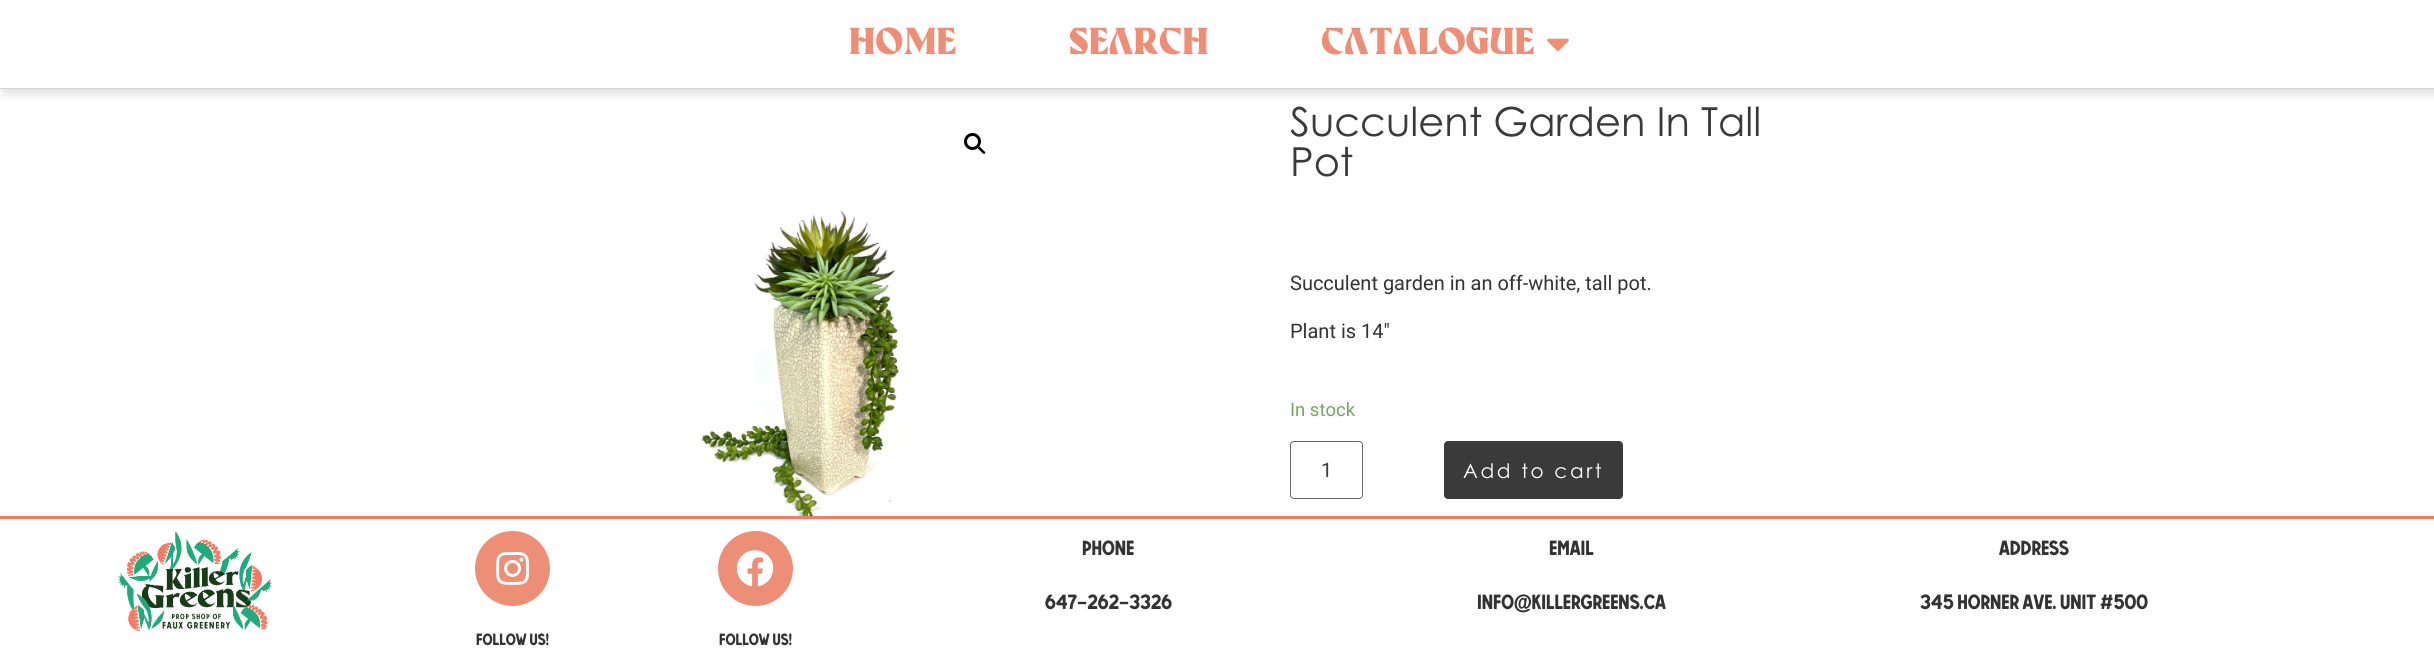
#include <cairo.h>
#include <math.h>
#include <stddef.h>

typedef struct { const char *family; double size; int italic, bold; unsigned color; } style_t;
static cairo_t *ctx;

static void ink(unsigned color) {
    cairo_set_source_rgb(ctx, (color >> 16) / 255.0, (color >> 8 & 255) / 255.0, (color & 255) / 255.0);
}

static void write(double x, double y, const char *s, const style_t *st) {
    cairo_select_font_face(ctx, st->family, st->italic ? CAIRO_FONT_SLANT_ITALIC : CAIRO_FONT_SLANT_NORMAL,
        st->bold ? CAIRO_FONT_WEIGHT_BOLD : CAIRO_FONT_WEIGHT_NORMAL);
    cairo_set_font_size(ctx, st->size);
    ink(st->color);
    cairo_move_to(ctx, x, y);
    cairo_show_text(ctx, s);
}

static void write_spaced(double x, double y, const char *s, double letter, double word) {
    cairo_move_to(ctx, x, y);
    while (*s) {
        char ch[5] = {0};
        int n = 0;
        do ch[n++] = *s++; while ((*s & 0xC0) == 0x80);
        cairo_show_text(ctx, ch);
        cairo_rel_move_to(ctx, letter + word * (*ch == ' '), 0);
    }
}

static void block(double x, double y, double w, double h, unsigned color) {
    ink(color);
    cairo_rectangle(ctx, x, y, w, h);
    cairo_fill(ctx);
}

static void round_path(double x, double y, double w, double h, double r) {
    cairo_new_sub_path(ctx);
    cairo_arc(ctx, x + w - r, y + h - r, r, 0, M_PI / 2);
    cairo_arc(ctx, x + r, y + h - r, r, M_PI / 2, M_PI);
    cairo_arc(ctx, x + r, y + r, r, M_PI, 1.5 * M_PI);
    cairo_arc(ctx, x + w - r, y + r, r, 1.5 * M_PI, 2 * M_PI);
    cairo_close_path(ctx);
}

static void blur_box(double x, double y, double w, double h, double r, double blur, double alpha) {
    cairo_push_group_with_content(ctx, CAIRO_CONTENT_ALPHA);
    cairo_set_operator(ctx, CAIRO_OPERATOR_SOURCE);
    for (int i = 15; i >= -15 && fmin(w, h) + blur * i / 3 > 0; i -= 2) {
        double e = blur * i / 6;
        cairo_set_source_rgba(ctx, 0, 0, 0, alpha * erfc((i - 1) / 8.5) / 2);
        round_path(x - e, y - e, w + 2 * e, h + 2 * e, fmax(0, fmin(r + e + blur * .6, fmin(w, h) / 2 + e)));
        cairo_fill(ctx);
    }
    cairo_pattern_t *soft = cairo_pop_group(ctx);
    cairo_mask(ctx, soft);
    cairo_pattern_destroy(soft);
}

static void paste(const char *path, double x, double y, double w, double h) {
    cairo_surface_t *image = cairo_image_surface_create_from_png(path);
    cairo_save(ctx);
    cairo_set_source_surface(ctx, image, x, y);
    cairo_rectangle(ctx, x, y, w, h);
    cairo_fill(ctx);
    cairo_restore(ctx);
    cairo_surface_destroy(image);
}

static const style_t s1 = {"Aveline", 37.5, 0, 0, 0xed8e77};
static const style_t s2 = {"Century Gothic", 40, 0, 0, 0x3a3a3a};
static const style_t s3 = {"Roboto", 20, 0, 0, 0x333333};
static const style_t s4 = {"Roboto", 18.5, 0, 0, 0x77a464};
static const style_t s5 = {"Roboto", 20, 0, 0, 0x3a3a3a};
static const style_t s6 = {"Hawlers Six", 24, 0, 0, 0x333333};
static const style_t s7 = {"Hawlers Six", 19, 0, 0, 0x333333};

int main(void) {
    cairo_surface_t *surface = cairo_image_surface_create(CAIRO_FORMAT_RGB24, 2434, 662);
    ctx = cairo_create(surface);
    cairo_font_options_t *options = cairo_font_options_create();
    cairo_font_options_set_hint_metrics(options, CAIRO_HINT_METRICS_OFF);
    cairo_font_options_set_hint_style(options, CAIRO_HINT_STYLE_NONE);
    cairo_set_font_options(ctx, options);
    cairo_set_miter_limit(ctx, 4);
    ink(0xffffff);
    cairo_paint(ctx);
    cairo_save(ctx);
    cairo_rectangle(ctx, 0, 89, 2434, 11);
    cairo_clip(ctx);
    ink(0x000000);
    blur_box(4, 4, 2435, 89, 0, 6, 0.15);
    cairo_restore(ctx);
    block(0, 88, 2434, 1, 0xd3d3d3);
    write(849, 54, "HOME", &s1);
    write(1069, 54, "SEARCH", &s1);
    write(1321, 54, "CATALOGUE", &s1);
    paste("pic1.png", 1547, 38, 22, 14);
    cairo_arc(ctx, 972.5, 141.5, 7, 0, 2 * M_PI);
    ink(0x000000);
    cairo_set_line_width(ctx, 3);
    cairo_stroke(ctx);
    cairo_new_path(ctx);
    cairo_move_to(ctx, 977.5, 146.5);
    cairo_curve_to(ctx, 979, 145, 981.5, 148.5, 982, 149);
    cairo_curve_to(ctx, 983, 150, 986, 152, 985, 153.5);
    cairo_curve_to(ctx, 983.5, 155, 981, 151.5, 980.5, 151);
    cairo_curve_to(ctx, 979.5, 150, 976.5, 148, 977.5, 146.5);
    cairo_close_path(ctx);
    cairo_fill(ctx);
    paste("pic2.png", 624, 211, 383, 305);
    write(1290, 136, "Succulent Garden In Tall", &s2);
    write(1290, 176, "Pot", &s2);
    write(1290, 290, "Succulent garden in an off-white, tall pot.", &s3);
    write(1290, 338, "Plant is 14″", &s3);
    write(1290, 416, "In stock", &s4);
    round_path(1290.5, 441.5, 72, 57, 3.5);
    ink(0x666666);
    cairo_set_line_width(ctx, 1);
    cairo_stroke(ctx);
    write(1321, 477, "1", &s5);
    round_path(1444, 441, 179, 58, 4);
    cairo_fill(ctx);
    cairo_select_font_face(ctx, "Century Gothic", CAIRO_FONT_SLANT_NORMAL, CAIRO_FONT_WEIGHT_NORMAL);
    ink(0xffffff);
    write_spaced(1463, 478, "Add to cart", 2.6, 0);
    block(0, 516, 2434, 3, 0xf37c65);
    paste("pic3.png", 117, 531, 156, 101);
    write(1082, 555, "phone", &s6);
    write(1045, 609, "647-262-3326", &s6);
    write(1549, 555, "email", &s6);
    write(1477, 609, "info@killergreens.ca", &s6);
    write(1999, 555, "address", &s6);
    write(1920, 609, "345 horner ave. unit #500", &s6);
    ink(0xed8e77);
    cairo_new_path(ctx);
    cairo_arc(ctx, 512.5, 568.5, 37.5, 0, 2 * M_PI);
    cairo_fill(ctx);
    paste("pic4.png", 496, 552, 33, 33);
    write(476, 645, "follow us!", &s7);
    ink(0xed8e77);
    cairo_new_path(ctx);
    cairo_arc(ctx, 755.5, 568.5, 37.5, 0, 2 * M_PI);
    cairo_fill(ctx);
    paste("pic5.png", 736, 550, 38, 37);
    write(719, 645, "follow us!", &s7);
    cairo_surface_write_to_png(surface, "screenshot.png");
    cairo_font_options_destroy(options);
    cairo_destroy(ctx);
    cairo_surface_destroy(surface);
    return 0;
}
